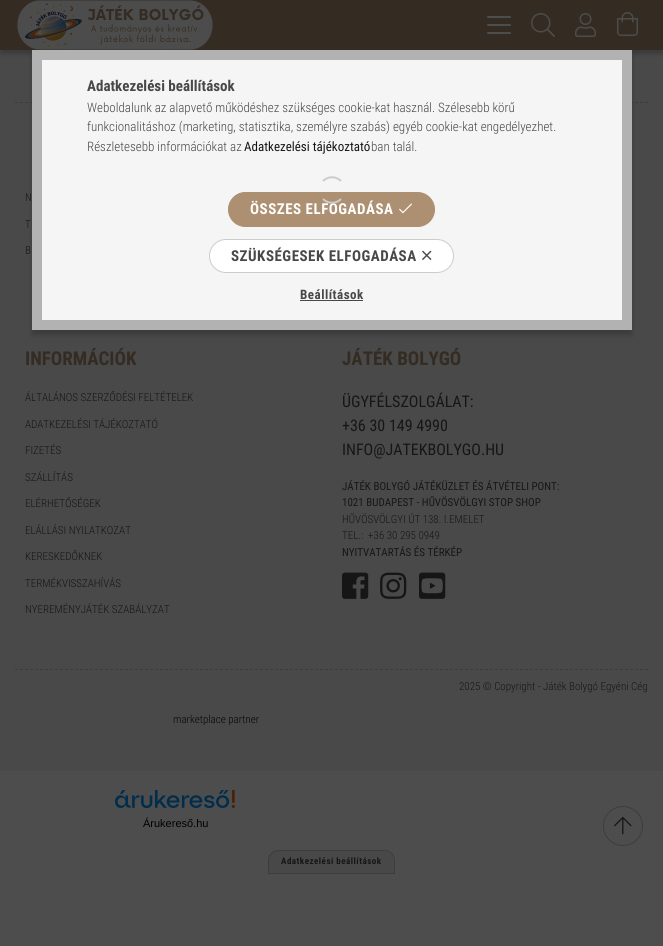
#include <cairo.h>
#include <math.h>
#include <stddef.h>

typedef struct { const char *family; double size; int italic, bold; unsigned color; } style_t;
static cairo_t *ctx;

static void ink(unsigned color) {
    cairo_set_source_rgb(ctx, (color >> 16) / 255.0, (color >> 8 & 255) / 255.0, (color & 255) / 255.0);
}

static void write(double x, double y, const char *s, const style_t *st) {
    cairo_select_font_face(ctx, st->family, st->italic ? CAIRO_FONT_SLANT_ITALIC : CAIRO_FONT_SLANT_NORMAL,
        st->bold ? CAIRO_FONT_WEIGHT_BOLD : CAIRO_FONT_WEIGHT_NORMAL);
    cairo_set_font_size(ctx, st->size);
    ink(st->color);
    cairo_move_to(ctx, x, y);
    cairo_show_text(ctx, s);
}

static void write_spaced(double x, double y, const char *s, double letter, double word) {
    cairo_move_to(ctx, x, y);
    while (*s) {
        char ch[5] = {0};
        int n = 0;
        do ch[n++] = *s++; while ((*s & 0xC0) == 0x80);
        cairo_show_text(ctx, ch);
        cairo_rel_move_to(ctx, letter + word * (*ch == ' '), 0);
    }
}

static void block(double x, double y, double w, double h, unsigned color) {
    ink(color);
    cairo_rectangle(ctx, x, y, w, h);
    cairo_fill(ctx);
}

static void round_path(double x, double y, double w, double h, double r) {
    cairo_new_sub_path(ctx);
    cairo_arc(ctx, x + w - r, y + h - r, r, 0, M_PI / 2);
    cairo_arc(ctx, x + r, y + h - r, r, M_PI / 2, M_PI);
    cairo_arc(ctx, x + r, y + r, r, M_PI, 1.5 * M_PI);
    cairo_arc(ctx, x + w - r, y + r, r, 1.5 * M_PI, 2 * M_PI);
    cairo_close_path(ctx);
}

static void blur_box(double x, double y, double w, double h, double r, double blur, double alpha) {
    cairo_push_group_with_content(ctx, CAIRO_CONTENT_ALPHA);
    cairo_set_operator(ctx, CAIRO_OPERATOR_SOURCE);
    for (int i = 15; i >= -15 && fmin(w, h) + blur * i / 3 > 0; i -= 2) {
        double e = blur * i / 6;
        cairo_set_source_rgba(ctx, 0, 0, 0, alpha * erfc((i - 1) / 8.5) / 2);
        round_path(x - e, y - e, w + 2 * e, h + 2 * e, fmax(0, fmin(r + e + blur * .6, fmin(w, h) / 2 + e)));
        cairo_fill(ctx);
    }
    cairo_pattern_t *soft = cairo_pop_group(ctx);
    cairo_mask(ctx, soft);
    cairo_pattern_destroy(soft);
}

static void paste(const char *path, double x, double y, double w, double h) {
    cairo_surface_t *image = cairo_image_surface_create_from_png(path);
    cairo_save(ctx);
    cairo_set_source_surface(ctx, image, x, y);
    cairo_rectangle(ctx, x, y, w, h);
    cairo_fill(ctx);
    cairo_restore(ctx);
    cairo_surface_destroy(image);
}

static const style_t s1 = {"Roboto Condensed", 15, 0, 1, 0x484848};
static const style_t s2 = {"Roboto Condensed Light", 13, 0, 0, 0x484848};
static const style_t s3 = {"Roboto Condensed", 13, 0, 0, 0x161616};
static const style_t s4 = {"Roboto Condensed Light", 11, 0, 0, 0x161616};
static const style_t s5 = {"Roboto Condensed", 19, 0, 1, 0x342b22};
static const style_t s6 = {"Roboto Condensed", 16, 0, 0, 0x161616};
static const style_t s7 = {"Roboto Condensed", 11, 0, 0, 0x161616};
static const style_t s8 = {"Roboto Condensed Light", 11, 0, 0, 0x070707};
static const style_t s9 = {"Liberation Sans", 11, 0, 0, 0x000000};

int main(void) {
    cairo_surface_t *surface = cairo_image_surface_create(CAIRO_FORMAT_RGB24, 663, 946);
    ctx = cairo_create(surface);
    cairo_font_options_t *options = cairo_font_options_create();
    cairo_font_options_set_hint_metrics(options, CAIRO_HINT_METRICS_OFF);
    cairo_font_options_set_hint_style(options, CAIRO_HINT_STYLE_NONE);
    cairo_set_font_options(ctx, options);
    cairo_set_miter_limit(ctx, 4);
    ink(0x4d4d4d);
    cairo_paint(ctx);
    block(0, 50, 663, 721, 0x494949);
    ink(0x000000);
    blur_box(0, 4, 663, 50, 0, 2, 0.2);
    block(0, 0, 663, 50, 0x342b22);
    paste("pic3.png", 17, 0, 196, 50);
    cairo_new_path(ctx);
    cairo_move_to(ctx, 15, 102.5);
    cairo_line_to(ctx, 648, 102.5);
    ink(0x3d3d3d);
    cairo_set_line_width(ctx, 1);
    cairo_set_dash(ctx, (double[]){3, 2}, 2, 0);
    cairo_stroke(ctx);
    ink(0x000000);
    blur_box(32, 55, 600, 280, 0, 2.5, 0.2);
    cairo_rectangle(ctx, 37, 55, 590, 270);
    ink(0xb2b2b2);
    cairo_set_line_width(ctx, 10);
    cairo_set_dash(ctx, NULL, 0, 0);
    cairo_stroke(ctx);
    block(42, 60, 580, 260, 0xf5f5f5);
    write(87, 91, "Adatkezelési beállítások", &s1);
    write(87, 112, "Weboldalunk az alapvető működéshez szükséges cookie-kat használ. Szélesebb körű", &s2);
    write(87, 131, "funkcionalitáshoz (marketing, statisztika, személyre szabás) egyéb cookie-kat engedélyezhet.", &s2);
    write(87, 151, "Részletesebb információkat az", &s2);
    write(244, 151, "Adatkezelési tájékoztató", &s3);
    write(371, 151, "ban talál.", &s2);
    ink(0xad8f71);
    round_path(228.5, 192.5, 206, 34, 17);
    cairo_fill_preserve(ctx);
    cairo_set_line_width(ctx, 1);
    cairo_stroke(ctx);
    cairo_select_font_face(ctx, "Roboto Condensed", CAIRO_FONT_SLANT_NORMAL, CAIRO_FONT_WEIGHT_BOLD);
    cairo_set_font_size(ctx, 15);
    ink(0xffffff);
    write_spaced(250, 214, "ÖSSZES ELFOGADÁSA", 0.5, 0);
    paste("pic1.png", 399, 203, 13, 11);
    round_path(209.5, 239.5, 244, 33, 16.5);
    cairo_fill_preserve(ctx);
    ink(0xcccccc);
    cairo_stroke(ctx);
    ink(0x484848);
    write_spaced(231, 261, "SZÜKSÉGESEK ELFOGADÁSA", 0.5, 0);
    paste("pic2.png", 422, 250, 10, 10);
    cairo_set_font_size(ctx, 13);
    write_spaced(300, 299, "Beállítások", 0.5, 0);
    block(300, 300, 63, 1, 0x484848);
    cairo_new_path(ctx);
    cairo_move_to(ctx, 323, 181);
    cairo_curve_to(ctx, 328, 176, 336, 176, 341, 181);
    cairo_move_to(ctx, 341, 199);
    cairo_curve_to(ctx, 336, 204, 328, 204, 323, 199);
    ink(0xcccccc);
    cairo_set_line_width(ctx, 2);
    cairo_stroke(ctx);
    ink(0x4d4d4d);
    round_path(487, 16, 24, 2, 1);
    cairo_fill(ctx);
    round_path(487, 24, 24, 2, 1);
    cairo_fill(ctx);
    round_path(487, 32, 24, 2, 1);
    cairo_fill(ctx);
    paste("pic4.png", 531, 13, 24, 24);
    paste("pic5.png", 575, 13, 21, 24);
    paste("pic6.png", 617, 12, 21, 24);
    write(25, 201, "N", &s4);
    write(25, 228, "T", &s4);
    write(25, 254, "B", &s4);
    write(25, 365, "INFORMÁCIÓK", &s5);
    write(25, 401, "ÁLTALÁNOS SZERZŐDÉSI FELTÉTELEK", &s4);
    write(25, 428, "ADATKEZELÉSI TÁJÉKOZTATÓ", &s4);
    write(25, 454, "FIZETÉS", &s4);
    write(25, 481, "SZÁLLÍTÁS", &s4);
    write(25, 507, "ELÉRHETŐSÉGEK", &s4);
    write(25, 534, "ELÁLLÁSI NYILATKOZAT", &s4);
    write(25, 560, "KERESKEDŐKNEK", &s4);
    write(25, 587, "TERMÉKVISSZAHÍVÁS", &s4);
    write(25, 613, "NYEREMÉNYJÁTÉK SZABÁLYZAT", &s4);
    write(342, 365, "JÁTÉK BOLYGÓ", &s5);
    write(342, 407, "ÜGYFÉLSZOLGÁLAT:", &s6);
    write(342, 431, "+36 30 149 4990", &s6);
    write(342, 455, "INFO@JATEKBOLYGO.HU", &s6);
    write(342, 490, "JÁTÉK BOLYGÓ JÁTÉKÜZLET ÉS ÁTVÉTELI PONT:", &s7);
    write(342, 506, "1021 BUDAPEST - HŰVÖSVÖLGYI STOP SHOP", &s7);
    write(342, 523, "HŰVÖSVÖLGYI ÚT 138. I.EMELET", &s4);
    write(342, 539, "TEL.:  +36 30 295 0949", &s4);
    write(342, 556, "NYITVATARTÁS ÉS TÉRKÉP", &s7);
    paste("pic7.png", 342, 572, 27, 27);
    paste("pic8.png", 380, 572, 27, 27);
    paste("pic9.png", 419, 572, 27, 27);
    cairo_new_path(ctx);
    cairo_move_to(ctx, 15, 669.5);
    cairo_line_to(ctx, 648, 669.5);
    ink(0x3d3d3d);
    cairo_set_line_width(ctx, 1);
    cairo_set_dash(ctx, (double[]){3, 2}, 2, 0);
    cairo_stroke(ctx);
    write(459, 690, "2025 © Copyright - Játék Bolygó Egyéni Cég", &s4);
    write(173, 723, "marketplace partner", &s8);
    paste("pic10.png", 115, 790, 120, 19);
    write(143, 827, "Árukereső.hu", &s9);
    cairo_new_path(ctx);
    cairo_arc(ctx, 623, 826, 19.5, 0, 2 * M_PI);
    ink(0x3d3d3d);
    cairo_set_dash(ctx, NULL, 0, 0);
    cairo_stroke(ctx);
    paste("pic11.png", 614, 816, 18, 19);
    ink(0x484848);
    cairo_new_path(ctx);
    cairo_move_to(ctx, 278, 850.5);
    cairo_line_to(ctx, 385, 850.5);
    cairo_curve_to(ctx, 390, 850.5, 394.5, 855, 394.5, 860);
    cairo_line_to(ctx, 394.5, 873.5);
    cairo_line_to(ctx, 268.5, 873.5);
    cairo_line_to(ctx, 268.5, 860);
    cairo_curve_to(ctx, 268.5, 855, 273, 850.5, 278, 850.5);
    cairo_close_path(ctx);
    cairo_fill_preserve(ctx);
    ink(0x3d3d3d);
    cairo_stroke(ctx);
    cairo_select_font_face(ctx, "Roboto Condensed", CAIRO_FONT_SLANT_NORMAL, CAIRO_FONT_WEIGHT_BOLD);
    cairo_set_font_size(ctx, 9);
    ink(0x161616);
    write_spaced(281, 864, "Adatkezelési beállítások", 0.5, 0);
    cairo_surface_write_to_png(surface, "screenshot.png");
    cairo_font_options_destroy(options);
    cairo_destroy(ctx);
    cairo_surface_destroy(surface);
    return 0;
}
